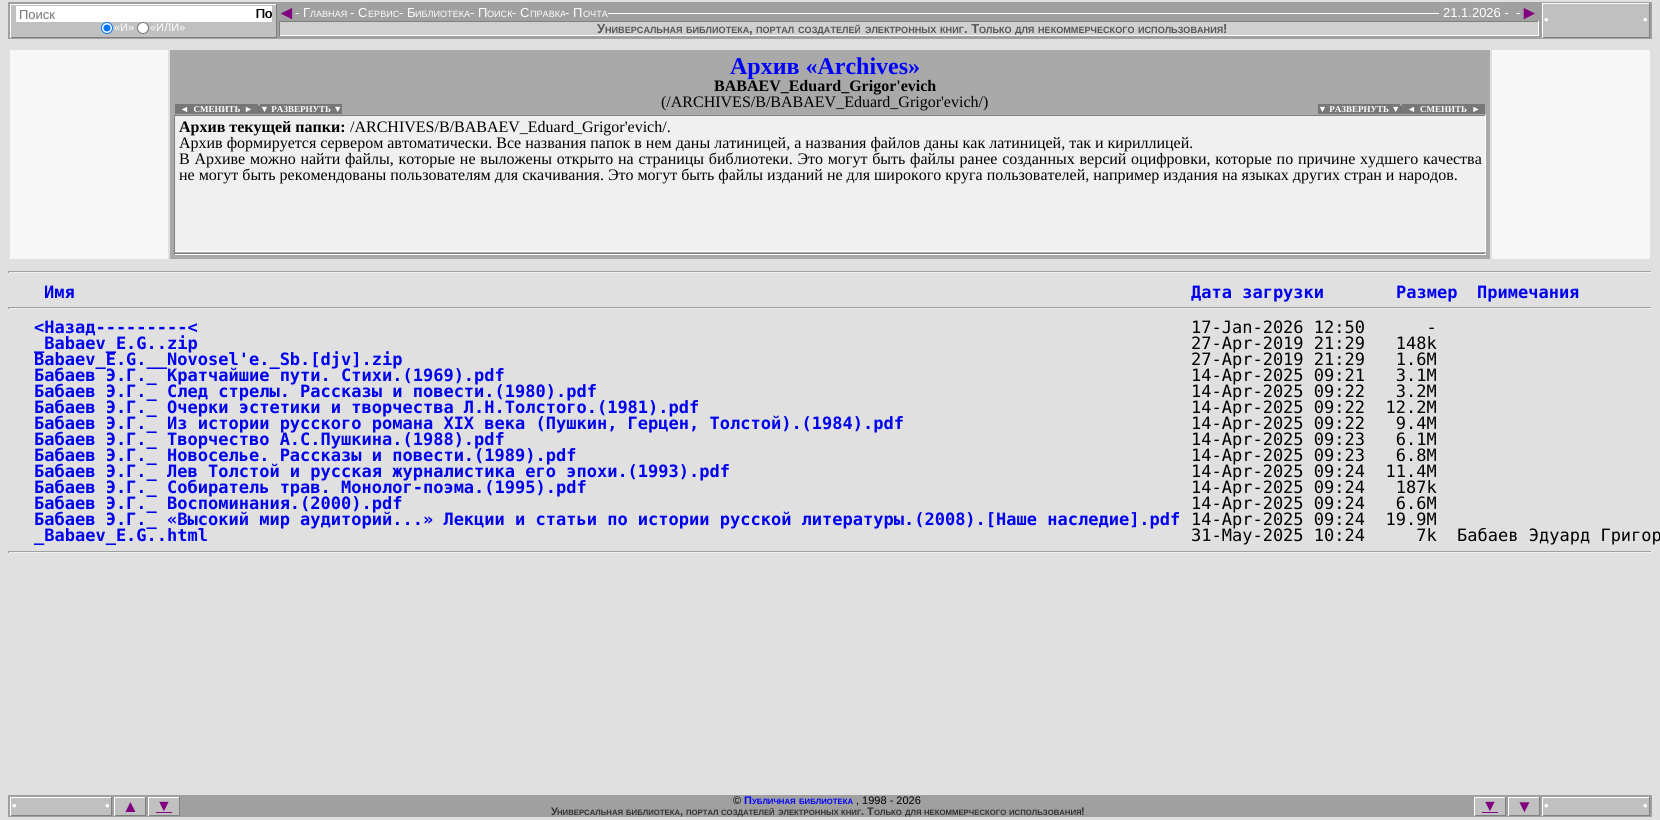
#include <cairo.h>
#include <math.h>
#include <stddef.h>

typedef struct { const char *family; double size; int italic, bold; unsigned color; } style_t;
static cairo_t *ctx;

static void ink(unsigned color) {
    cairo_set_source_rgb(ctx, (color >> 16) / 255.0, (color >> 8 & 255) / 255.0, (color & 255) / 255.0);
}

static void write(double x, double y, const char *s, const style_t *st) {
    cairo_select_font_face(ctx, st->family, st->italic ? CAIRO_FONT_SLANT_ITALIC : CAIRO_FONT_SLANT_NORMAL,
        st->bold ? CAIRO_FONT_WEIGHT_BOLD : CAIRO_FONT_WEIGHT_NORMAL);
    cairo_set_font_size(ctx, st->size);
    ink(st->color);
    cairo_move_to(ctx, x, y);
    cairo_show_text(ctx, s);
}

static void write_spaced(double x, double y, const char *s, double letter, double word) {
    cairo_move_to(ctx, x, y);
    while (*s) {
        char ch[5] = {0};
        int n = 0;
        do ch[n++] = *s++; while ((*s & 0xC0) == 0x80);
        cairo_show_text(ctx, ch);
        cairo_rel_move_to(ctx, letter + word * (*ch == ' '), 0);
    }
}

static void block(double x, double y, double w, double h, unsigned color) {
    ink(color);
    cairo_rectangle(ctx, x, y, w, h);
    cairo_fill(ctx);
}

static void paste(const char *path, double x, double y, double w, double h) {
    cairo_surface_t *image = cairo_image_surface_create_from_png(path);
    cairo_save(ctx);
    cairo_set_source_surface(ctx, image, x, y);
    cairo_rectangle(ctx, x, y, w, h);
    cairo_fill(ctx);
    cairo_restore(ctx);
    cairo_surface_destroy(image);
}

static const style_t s1 = {"Liberation Sans", 13, 0, 0, 0x757575};
static const style_t s2 = {"Liberation Sans", 13, 0, 0, 0x000000};
static const style_t s3 = {"Liberation Sans", 11, 0, 0, 0xffffff};
static const style_t s4 = {"Liberation Sans", 19, 0, 0, 0x800080};
static const style_t s5 = {"Liberation Sans", 13, 0, 0, 0xffffff};
static const style_t s6 = {"Liberation Sans", 9.1, 0, 0, 0xffffff};
static const style_t s7 = {"Liberation Sans", 13, 0, 1, 0x555555};
static const style_t s8 = {"Liberation Sans", 9.1, 0, 1, 0x555555};
static const style_t s9 = {"Liberation Serif", 24, 0, 1, 0x0000ff};
static const style_t s10 = {"Liberation Serif", 16, 0, 1, 0x000000};
static const style_t s11 = {"Liberation Serif", 9, 0, 1, 0xffffff};
static const style_t s12 = {"Liberation Serif", 9, 0, 1, 0x000000};
static const style_t s13 = {"Liberation Serif", 16, 0, 0, 0x000000};
static const style_t s14 = {"DejaVu Sans Mono", 17, 0, 1, 0x0000ee};
static const style_t s15 = {"DejaVu Sans Mono", 17, 0, 0, 0x000000};
static const style_t s16 = {"Liberation Sans", 17, 0, 0, 0x800080};
static const style_t s17 = {"Liberation Sans", 16, 0, 0, 0x800080};
static const style_t s18 = {"Liberation Sans", 11, 0, 0, 0x000000};
static const style_t s19 = {"Liberation Sans", 11, 0, 1, 0x0000ff};
static const style_t s20 = {"Liberation Sans", 7.75, 0, 1, 0x0000ff};
static const style_t s21 = {"Liberation Sans", 11, 0, 1, 0x333333};
static const style_t s22 = {"Liberation Sans", 7.75, 0, 1, 0x333333};

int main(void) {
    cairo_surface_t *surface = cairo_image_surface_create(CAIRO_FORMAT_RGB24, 1660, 820);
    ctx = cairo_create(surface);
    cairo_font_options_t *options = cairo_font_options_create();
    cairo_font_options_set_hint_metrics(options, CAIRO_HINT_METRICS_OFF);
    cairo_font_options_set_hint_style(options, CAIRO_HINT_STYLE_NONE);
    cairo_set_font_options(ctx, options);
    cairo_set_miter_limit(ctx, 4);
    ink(0xe0e0e0);
    cairo_paint(ctx);
    block(8, 2, 1644, 37, 0xa0a0a0);
    block(11, 5, 265, 32, 0xc0c0c0);
    block(10, 4, 267, 1, 0xffffff);
    block(276, 4, 1, 34, 0x808080);
    block(10, 37, 267, 1, 0x808080);
    block(10, 4, 1, 34, 0xffffff);
    block(16, 6, 256, 16, 0xffffff);
    write(19, 19, "Поиск", &s1);
    paste("pic1.png", 256, 9, 16, 9);
    write(256, 18, "По", &s2);
    ink(0xffffff);
    cairo_new_path(ctx);
    cairo_arc(ctx, 107, 28, 5.5, 0, 2 * M_PI);
    cairo_fill_preserve(ctx);
    ink(0x0075ff);
    cairo_set_line_width(ctx, 1);
    cairo_stroke(ctx);
    cairo_arc(ctx, 107, 28, 3.5, 0, 2 * M_PI);
    cairo_fill(ctx);
    write(114, 31, "«И»", &s3);
    cairo_new_path(ctx);
    cairo_arc(ctx, 143, 28, 5.5, 0, 2 * M_PI);
    cairo_fill_preserve(ctx);
    ink(0x767676);
    cairo_stroke(ctx);
    write(150, 31, "«ИЛИ»", &s3);
    write(277, 19, "◄", &s4);
    write(295, 17, "- Г", &s5);
    write(310, 17, "ЛАВНАЯ", &s6);
    write(350, 17, "- С", &s5);
    write(368, 17, "ЕРВИС", &s6);
    write(399, 17, "- Б", &s5);
    write(415, 17, "ИБЛИОТЕКА", &s6);
    block(470, 16, 1, 3, 0xa0a0a0);
    write(470, 17, "- П", &s5);
    write(487, 17, "ОИСК", &s6);
    block(512, 16, 1, 3, 0xa0a0a0);
    write(512, 17, "- С", &s5);
    write(530, 17, "ПРАВКА", &s6);
    block(565, 15, 1, 4, 0xa0a0a0);
    write(565, 17, "- П", &s5);
    block(607, 13, 832, 1, 0xffffff);
    block(607, 12, 1, 2, 0xa0a0a0);
    write(583, 17, "ОЧТА", &s6);
    write(1443, 17, "21.1.2026 -", &s5);
    write(1516, 17, "-", &s5);
    write(1520, 19, "►", &s4);
    block(280, 22, 1258, 13, 0xd0d0d0);
    block(279, 21, 1260, 1, 0x808080);
    block(1538, 21, 1, 15, 0xffffff);
    block(279, 35, 1260, 1, 0xffffff);
    block(279, 21, 1, 15, 0x808080);
    write(597, 33, "У", &s7);
    write(605, 33, "НИВЕРСАЛЬНАЯ", &s8);
    write(686, 33, "БИБЛИОТЕКА", &s8);
    write(749, 33, ",", &s7);
    write(756, 33, "ПОРТАЛ", &s8);
    write(798, 33, "СОЗДАТЕЛЕЙ", &s8);
    write(865, 33, "ЭЛЕКТРОННЫХ", &s8);
    write(940, 33, "КНИГ", &s8);
    write(964, 33, ". Т", &s7);
    write(979, 33, "ОЛЬКО", &s8);
    write(1015, 33, "ДЛЯ", &s8);
    write(1038, 33, "НЕКОММЕРЧЕСКОГО", &s8);
    write(1138, 33, "ИСПОЛЬЗОВАНИЯ", &s8);
    write(1223, 33, "!", &s7);
    block(1543, 4, 106, 33, 0xc0c0c0);
    block(1542, 3, 108, 1, 0xffffff);
    block(1649, 3, 1, 35, 0x808080);
    block(1542, 37, 108, 1, 0x808080);
    block(1542, 3, 1, 35, 0xffffff);
    write(1544, 24, "•", &s5);
    write(1643, 24, "•", &s5);
    block(10, 50, 158, 209, 0xf7f7f7);
    block(170, 50, 1320, 209, 0xa9a9a9);
    write(730, 74, "Архив «Archives»", &s9);
    write(714, 91, "BABAEV_Eduard_Grigor'evich", &s10);
    block(175, 104, 83, 10, 0x777777);
    write(180, 112, "◄  СМЕНИТЬ", &s11);
    write(244, 112, "►", &s11);
    write(258, 112, "|", &s12);
    block(260, 104, 82, 10, 0x777777);
    write(260, 112, "▼ РАЗВЕРНУТЬ ▼", &s11);
    write(661, 107, "(/ARCHIVES/B/BABAEV_Eduard_Grigor'evich/)", &s13);
    block(1318, 104, 82, 10, 0x777777);
    write(1318, 112, "▼ РАЗВЕРНУТЬ ▼", &s11);
    write(1400, 112, "|", &s12);
    block(1402, 104, 83, 10, 0x777777);
    write(1407, 112, "◄", &s11);
    write(1420, 112, "СМЕНИТЬ  ►", &s11);
    block(175, 116, 1310, 135, 0xf0f0f0);
    block(174, 115, 1312, 1, 0x808080);
    block(1485, 115, 1, 137, 0xffffff);
    block(174, 251, 1312, 1, 0xffffff);
    block(174, 115, 1, 137, 0x808080);
    write(179, 132, "Архив текущей папки:", &s10);
    write(350, 132, "/ARCHIVES/B/BABAEV_Eduard_Grigor'evich/.", &s13);
    write(179, 148, "Архив формируется сервером автоматически. Все названия папок в нем даны латиницей, а названия файлов даны как латиницей, так и кириллицей.", &s13);
    write_spaced(179, 164, "В Архиве можно найти файлы, которые не выложены открыто на страницы библиотеки. Это могут быть файлы ранее созданных версий оцифровки, которые по причине худшего качества", 0, 0.75);
    write(179, 180, "не могут быть рекомендованы пользователям для скачивания. Это могут быть файлы изданий не для широкого круга пользователей, например издания на языках других стран и народов.", &s13);
    block(174, 253, 1312, 1, 0x808080);
    block(1485, 253, 1, 2, 0xffffff);
    block(174, 254, 1312, 1, 0xffffff);
    block(174, 253, 1, 2, 0x808080);
    block(1492, 50, 158, 209, 0xf7f7f7);
    block(8, 271, 1644, 1, 0x9f9f9f);
    block(1651, 271, 1, 2, 0xeeeeee);
    block(8, 272, 1644, 1, 0xeeeeee);
    block(8, 271, 1, 2, 0x9f9f9f);
    write(44, 298, "Имя", &s14);
    write(1191, 298, "Дата загрузки", &s14);
    write(1396, 298, "Размер", &s14);
    write(1477, 298, "Примечания", &s14);
    block(8, 307, 1644, 1, 0x9f9f9f);
    block(1651, 307, 1, 2, 0xeeeeee);
    block(8, 308, 1644, 1, 0xeeeeee);
    block(8, 307, 1, 2, 0x9f9f9f);
    write(34, 333, "<Назад---------<", &s14);
    write(1191, 333, "17-Jan-2026 12:50      -", &s15);
    write(34, 349, "_Babaev_E.G..zip", &s14);
    write(1191, 349, "27-Apr-2019 21:29   148k", &s15);
    write(34, 365, "Babaev_E.G.__Novosel'e._Sb.[djv].zip", &s14);
    write(1191, 365, "27-Apr-2019 21:29   1.6M", &s15);
    write(34, 381, "Бабаев Э.Г._ Кратчайшие пути. Стихи.(1969).pdf", &s14);
    write(1191, 381, "14-Apr-2025 09:21   3.1M", &s15);
    write(34, 397, "Бабаев Э.Г._ След стрелы. Рассказы и повести.(1980).pdf", &s14);
    write(1191, 397, "14-Apr-2025 09:22   3.2M", &s15);
    write(34, 413, "Бабаев Э.Г._ Очерки эстетики и творчества Л.Н.Толстого.(1981).pdf", &s14);
    write(1191, 413, "14-Apr-2025 09:22  12.2M", &s15);
    write(34, 429, "Бабаев Э.Г._ Из истории русского романа XIX века (Пушкин, Герцен, Толстой).(1984).pdf", &s14);
    write(1191, 429, "14-Apr-2025 09:22   9.4M", &s15);
    write(34, 445, "Бабаев Э.Г._ Творчество А.С.Пушкина.(1988).pdf", &s14);
    write(1191, 445, "14-Apr-2025 09:23   6.1M", &s15);
    write(34, 461, "Бабаев Э.Г._ Новоселье. Рассказы и повести.(1989).pdf", &s14);
    write(1191, 461, "14-Apr-2025 09:23   6.8M", &s15);
    write(34, 477, "Бабаев Э.Г._ Лев Толстой и русская журналистика его эпохи.(1993).pdf", &s14);
    write(1191, 477, "14-Apr-2025 09:24  11.4M", &s15);
    write(34, 493, "Бабаев Э.Г._ Собиратель трав. Монолог-поэма.(1995).pdf", &s14);
    write(1191, 493, "14-Apr-2025 09:24   187k", &s15);
    write(34, 509, "Бабаев Э.Г._ Воспоминания.(2000).pdf", &s14);
    write(1191, 509, "14-Apr-2025 09:24   6.6M", &s15);
    write(34, 525, "Бабаев Э.Г._ «Высокий мир аудиторий...» Лекции и статьи по истории русской литературы.(2008).[Наше наследие].pdf", &s14);
    write(1191, 525, "14-Apr-2025 09:24  19.9M", &s15);
    write(34, 541, "_Babaev_E.G..html", &s14);
    write(1191, 541, "31-May-2025 10:24     7k  Бабаев Эдуард Григор", &s15);
    block(8, 551, 1644, 1, 0x9f9f9f);
    block(1651, 551, 1, 2, 0xeeeeee);
    block(8, 552, 1644, 1, 0xeeeeee);
    block(8, 551, 1, 2, 0x9f9f9f);
    block(8, 795, 1644, 22, 0xa0a0a0);
    block(11, 798, 100, 17, 0xc0c0c0);
    block(10, 797, 102, 1, 0xffffff);
    block(111, 797, 1, 19, 0x808080);
    block(10, 815, 102, 1, 0x808080);
    block(10, 797, 1, 19, 0xffffff);
    write(12, 810, "•", &s5);
    write(105, 810, "•", &s5);
    block(115, 798, 30, 17, 0xc0c0c0);
    block(114, 797, 32, 1, 0xffffff);
    block(145, 797, 1, 19, 0x808080);
    block(114, 815, 32, 1, 0x808080);
    block(114, 797, 1, 19, 0xffffff);
    write(122, 812, "▲", &s16);
    block(149, 798, 30, 17, 0xc0c0c0);
    block(148, 797, 32, 1, 0xffffff);
    block(179, 797, 1, 19, 0x808080);
    block(148, 815, 32, 1, 0x808080);
    block(148, 797, 1, 19, 0xffffff);
    write(156, 811, "▼", &s17);
    block(156, 812, 16, 1, 0x800080);
    write(733, 804, "©", &s18);
    write(744, 804, "П", &s19);
    write(752, 804, "УБЛИЧНАЯ", &s20);
    write(799, 804, "БИБЛИОТЕКА", &s20);
    write(856, 804, ", 1998 - 2026", &s18);
    block(1475, 798, 30, 17, 0xc0c0c0);
    block(1474, 797, 32, 1, 0xffffff);
    block(1505, 797, 1, 19, 0x808080);
    block(1474, 815, 32, 1, 0x808080);
    block(1474, 797, 1, 19, 0xffffff);
    write(1482, 811, "▼", &s17);
    block(1482, 812, 16, 1, 0x800080);
    block(1509, 798, 30, 17, 0xc0c0c0);
    block(1508, 797, 32, 1, 0xffffff);
    block(1539, 797, 1, 19, 0x808080);
    block(1508, 815, 32, 1, 0x808080);
    block(1508, 797, 1, 19, 0xffffff);
    write(1516, 812, "▼", &s16);
    write(551, 815, "У", &s21);
    write(557, 815, "НИВЕРСАЛЬНАЯ", &s22);
    write(626, 815, "БИБЛИОТЕКА", &s22);
    write(680, 815, ",", &s21);
    write(686, 815, "ПОРТАЛ", &s22);
    write(721, 815, "СОЗДАТЕЛЕЙ", &s22);
    write(778, 815, "ЭЛЕКТРОННЫХ", &s22);
    write(841, 815, "КНИГ", &s22);
    write(861, 815, ". Т", &s21);
    write(874, 815, "ОЛЬКО", &s22);
    write(905, 815, "ДЛЯ", &s22);
    write(924, 815, "НЕКОММЕРЧЕСКОГО", &s22);
    write(1009, 815, "ИСПОЛЬЗОВАНИЯ", &s22);
    write(1081, 815, "!", &s21);
    block(1543, 798, 106, 17, 0xc0c0c0);
    block(1542, 797, 108, 1, 0xffffff);
    block(1649, 797, 1, 19, 0x808080);
    block(1542, 815, 108, 1, 0x808080);
    block(1542, 797, 1, 19, 0xffffff);
    write(1544, 810, "•", &s5);
    write(1643, 810, "•", &s5);
    cairo_surface_write_to_png(surface, "screenshot.png");
    cairo_font_options_destroy(options);
    cairo_destroy(ctx);
    cairo_surface_destroy(surface);
    return 0;
}
